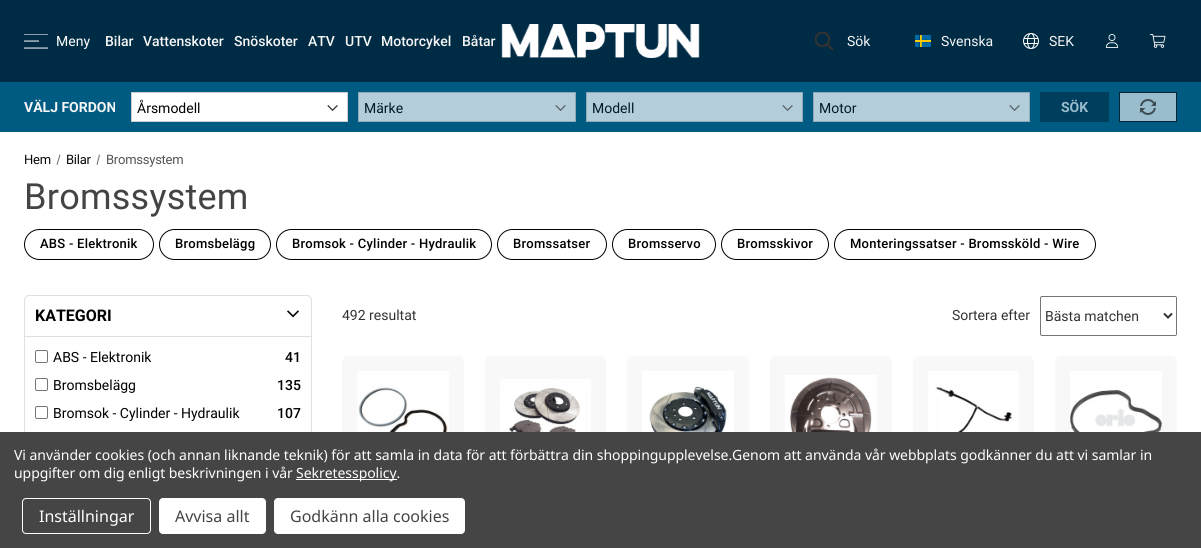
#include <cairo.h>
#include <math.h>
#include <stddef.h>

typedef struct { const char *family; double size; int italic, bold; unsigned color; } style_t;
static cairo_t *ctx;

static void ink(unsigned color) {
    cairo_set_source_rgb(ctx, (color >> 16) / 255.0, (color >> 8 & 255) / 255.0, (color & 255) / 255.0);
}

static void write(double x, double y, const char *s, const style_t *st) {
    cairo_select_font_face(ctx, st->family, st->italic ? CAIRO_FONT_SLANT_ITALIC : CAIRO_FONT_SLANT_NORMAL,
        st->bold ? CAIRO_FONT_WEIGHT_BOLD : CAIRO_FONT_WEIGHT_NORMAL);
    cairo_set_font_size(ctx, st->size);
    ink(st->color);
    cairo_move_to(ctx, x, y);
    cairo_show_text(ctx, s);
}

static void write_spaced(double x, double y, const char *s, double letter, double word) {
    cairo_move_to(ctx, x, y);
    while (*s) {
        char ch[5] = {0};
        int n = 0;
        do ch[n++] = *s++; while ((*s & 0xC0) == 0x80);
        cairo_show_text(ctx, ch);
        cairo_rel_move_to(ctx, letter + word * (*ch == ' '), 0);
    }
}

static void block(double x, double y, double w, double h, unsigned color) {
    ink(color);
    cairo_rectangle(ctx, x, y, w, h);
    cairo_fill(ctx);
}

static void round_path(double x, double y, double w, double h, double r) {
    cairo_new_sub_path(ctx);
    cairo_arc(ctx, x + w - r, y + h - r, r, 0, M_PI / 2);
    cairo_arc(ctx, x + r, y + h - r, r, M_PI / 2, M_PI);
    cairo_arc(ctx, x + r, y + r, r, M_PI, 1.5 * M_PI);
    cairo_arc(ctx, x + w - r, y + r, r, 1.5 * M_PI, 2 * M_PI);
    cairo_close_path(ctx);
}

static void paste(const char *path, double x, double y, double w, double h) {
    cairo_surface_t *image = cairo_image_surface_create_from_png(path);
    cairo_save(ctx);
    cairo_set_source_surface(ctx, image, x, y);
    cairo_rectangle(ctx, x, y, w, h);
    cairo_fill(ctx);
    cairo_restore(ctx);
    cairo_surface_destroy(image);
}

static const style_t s1 = {"Roboto", 14, 0, 0, 0xffffff};
static const style_t s2 = {"Roboto Medium", 14, 0, 0, 0xf6f6f6};
static const style_t s3 = {"Roboto", 14, 0, 0, 0xf6f6f6};
static const style_t s4 = {"Roboto", 14, 0, 1, 0xf6f6f6};
static const style_t s5 = {"Roboto", 14, 0, 0, 0x000000};
static const style_t s6 = {"Roboto", 14, 0, 0, 0x001b27};
static const style_t s7 = {"Roboto", 14, 0, 1, 0x99bdcd};
static const style_t s8 = {"Roboto", 16, 0, 1, 0x000000};
static const style_t s9 = {"Roboto Medium", 14, 0, 0, 0x000000};
static const style_t s10 = {"Roboto", 14, 0, 0, 0x333333};
static const style_t s11 = {"Noto Sans", 16, 0, 0, 0xffffff};
static const style_t s12 = {"Noto Sans", 16, 0, 0, 0x444444};

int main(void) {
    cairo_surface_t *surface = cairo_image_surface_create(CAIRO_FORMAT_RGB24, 1201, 548);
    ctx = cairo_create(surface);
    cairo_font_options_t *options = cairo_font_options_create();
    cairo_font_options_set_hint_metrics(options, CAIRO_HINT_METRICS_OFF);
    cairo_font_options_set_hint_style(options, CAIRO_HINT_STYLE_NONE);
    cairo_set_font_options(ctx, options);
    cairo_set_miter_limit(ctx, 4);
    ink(0xffffff);
    cairo_paint(ctx);
    block(0, 0, 1201, 82, 0x002b45);
    paste("pic1.png", 24, 34, 24, 15);
    write(56, 46, "Meny", &s1);
    write(105, 46, "Bilar", &s2);
    write(143, 46, "Vattenskoter", &s2);
    write(234, 46, "Snöskoter", &s2);
    write(308, 46, "ATV", &s2);
    write(345, 46, "UTV", &s2);
    write(381, 46, "Motorcykel", &s2);
    write(462, 46, "Båtar", &s2);
    paste("pic2.png", 501, 24, 199, 34);
    paste("pic3.png", 815, 32, 18, 18);
    write(847, 46, "Sök", &s3);
    paste("pic4.png", 915, 35, 16, 12);
    write(941, 46, "Svenska", &s3);
    paste("pic5.png", 1023, 33, 16, 16);
    write(1049, 46, "SEK", &s3);
    paste("pic6.png", 1105, 34, 14, 14);
    paste("pic7.png", 1150, 34, 16, 14);
    block(0, 82, 1201, 50, 0x005b82);
    write(24, 112, "VÄLJ FORDON", &s4);
    block(132, 93, 215, 28, 0xffffff);
    paste("pic8.png", 327, 105, 11, 6);
    cairo_rectangle(ctx, 131.5, 92.5, 216, 29);
    ink(0xcccccc);
    cairo_set_line_width(ctx, 1);
    cairo_stroke(ctx);
    write(137, 113, "Årsmodell", &s5);
    block(359, 93, 216, 28, 0xb3ceda);
    paste("pic9.png", 555, 105, 11, 6);
    cairo_rectangle(ctx, 358.5, 92.5, 217, 29);
    ink(0x8faab6);
    cairo_stroke(ctx);
    write(364, 113, "Märke", &s6);
    block(587, 93, 215, 28, 0xb3ceda);
    paste("pic9.png", 782, 105, 11, 6);
    cairo_rectangle(ctx, 586.5, 92.5, 216, 29);
    ink(0x8faab6);
    cairo_stroke(ctx);
    write(592, 113, "Modell", &s6);
    block(814, 93, 215, 28, 0xb3ceda);
    paste("pic9.png", 1009, 105, 11, 6);
    cairo_rectangle(ctx, 813.5, 92.5, 216, 29);
    ink(0x8faab6);
    cairo_stroke(ctx);
    write(819, 113, "Motor", &s6);
    block(1040, 92, 69, 30, 0x003e5d);
    write(1061, 112, "SÖK", &s7);
    cairo_rectangle(ctx, 1119.5, 92.5, 57, 29);
    cairo_fill_preserve(ctx);
    ink(0x002434);
    cairo_stroke(ctx);
    paste("pic10.png", 1140, 99, 16, 16);
    cairo_select_font_face(ctx, "Roboto", CAIRO_FONT_SLANT_NORMAL, CAIRO_FONT_WEIGHT_NORMAL);
    cairo_set_font_size(ctx, 13);
    ink(0x0a0a0a);
    write_spaced(24, 164, "Hem", -0.25, 0);
    write_spaced(66, 164, "Bilar", -0.25, 0);
    ink(0x757575);
    cairo_new_path(ctx);
    cairo_move_to(ctx, 59.5, 154.5);
    cairo_line_to(ctx, 60.5, 155);
    cairo_line_to(ctx, 57.5, 165);
    cairo_line_to(ctx, 56.5, 164.5);
    cairo_close_path(ctx);
    cairo_move_to(ctx, 99, 154.5);
    cairo_line_to(ctx, 100, 155);
    cairo_line_to(ctx, 97.5, 165);
    cairo_line_to(ctx, 96.5, 164.5);
    cairo_close_path(ctx);
    cairo_fill(ctx);
    ink(0x555555);
    write_spaced(106, 164, "Bromssystem", -0.25, 0);
    cairo_set_font_size(ctx, 36);
    ink(0x444444);
    write_spaced(24, 209, "Bromssystem", 0.25, 0);
    round_path(24.5, 229.5, 129, 30, 15);
    ink(0x000000);
    cairo_stroke(ctx);
    cairo_select_font_face(ctx, "Roboto Medium", CAIRO_FONT_SLANT_NORMAL, CAIRO_FONT_WEIGHT_NORMAL);
    cairo_set_font_size(ctx, 13);
    write_spaced(40, 248, "ABS - Elektronik", 0.25, 0);
    round_path(159.5, 229.5, 111, 30, 15);
    cairo_stroke(ctx);
    write_spaced(175, 248, "Bromsbelägg", 0.25, 0);
    round_path(276.5, 229.5, 215, 30, 15);
    cairo_stroke(ctx);
    write_spaced(292, 248, "Bromsok - Cylinder - Hydraulik", 0.25, 0);
    round_path(497.5, 229.5, 109, 30, 15);
    cairo_stroke(ctx);
    write_spaced(513, 248, "Bromssatser", 0.25, 0);
    round_path(612.5, 229.5, 103, 30, 15);
    cairo_stroke(ctx);
    write_spaced(628, 248, "Bromsservo", 0.25, 0);
    round_path(721.5, 229.5, 107, 30, 15);
    cairo_stroke(ctx);
    write_spaced(737, 248, "Bromsskivor", 0.25, 0);
    round_path(834.5, 229.5, 261, 30, 15);
    cairo_stroke(ctx);
    write_spaced(850, 248, "Monteringssatser - Bromssköld - Wire", 0.25, 0);
    round_path(24.5, 295.5, 287, 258, 4.5);
    ink(0xe0e0e0);
    cairo_stroke(ctx);
    block(25, 336, 286, 1, 0xe0e0e0);
    write(35, 321, "KATEGORI", &s8);
    paste("pic11.png", 287, 310, 12, 8);
    round_path(35.5, 350.5, 12, 12, 1.5);
    ink(0x767676);
    cairo_stroke(ctx);
    write(53, 362, "ABS - Elektronik", &s5);
    write(285, 362, "41", &s9);
    round_path(35.5, 378.5, 12, 12, 1.5);
    ink(0x767676);
    cairo_stroke(ctx);
    write(53, 390, "Bromsbelägg", &s5);
    write(277, 390, "135", &s9);
    round_path(35.5, 406.5, 12, 12, 1.5);
    ink(0x767676);
    cairo_stroke(ctx);
    write(53, 418, "Bromsok - Cylinder - Hydraulik", &s5);
    write(277, 418, "107", &s9);
    write(342, 320, "492 resultat", &s10);
    write(952, 320, "Sortera efter", &s10);
    round_path(1040.5, 296.5, 136, 39, 1.5);
    ink(0x767676);
    cairo_stroke(ctx);
    cairo_new_path(ctx);
    cairo_move_to(ctx, 1164, 313.5);
    cairo_line_to(ctx, 1168, 317.5);
    cairo_line_to(ctx, 1172, 313.5);
    ink(0x333333);
    cairo_set_line_width(ctx, 2);
    cairo_stroke(ctx);
    write(1045, 321, "Bästa matchen", &s10);
    ink(0xf8f8f8);
    round_path(342, 356, 122, 122, 6);
    cairo_fill(ctx);
    paste("pic12.png", 357, 371, 92, 61);
    round_path(485, 356, 121, 122, 6);
    cairo_fill(ctx);
    paste("pic13.png", 500, 379, 91, 53);
    round_path(627, 356, 122, 122, 6);
    cairo_fill(ctx);
    paste("pic14.png", 642, 371, 92, 61);
    round_path(770, 356, 122, 122, 6);
    cairo_fill(ctx);
    paste("pic15.png", 785, 375, 92, 57);
    round_path(913, 356, 121, 122, 6);
    cairo_fill(ctx);
    paste("pic16.png", 928, 371, 91, 61);
    round_path(1055, 356, 122, 122, 6);
    cairo_fill(ctx);
    paste("pic17.png", 1070, 371, 92, 61);
    block(0, 432, 1201, 116, 0x454545);
    cairo_select_font_face(ctx, "Noto Sans", CAIRO_FONT_SLANT_NORMAL, CAIRO_FONT_WEIGHT_NORMAL);
    ink(0xffffff);
    write_spaced(14, 460, "Vi använder cookies (och annan liknande teknik) för att samla in data för att förbättra din shoppingupplevelse.Genom att använda vår webbplats godkänner du att vi samlar in", -0.05, 0);
    write_spaced(14, 478, "uppgifter om dig enligt beskrivningen i vår", -0.05, 0);
    block(296, 479, 101, 1, 0xffffff);
    write_spaced(296, 478, "Sekretesspolicy.", -0.05, 0);
    round_path(22.5, 498.5, 128, 35, 3.5);
    cairo_set_line_width(ctx, 1);
    cairo_stroke(ctx);
    write(39, 522, "Inställningar", &s11);
    round_path(159, 498, 107, 36, 4);
    cairo_fill(ctx);
    write(175, 522, "Avvisa allt", &s12);
    ink(0xffffff);
    round_path(274, 498, 191, 36, 4);
    cairo_fill(ctx);
    write(290, 522, "Godkänn alla cookies", &s12);
    cairo_surface_write_to_png(surface, "screenshot.png");
    cairo_font_options_destroy(options);
    cairo_destroy(ctx);
    cairo_surface_destroy(surface);
    return 0;
}
